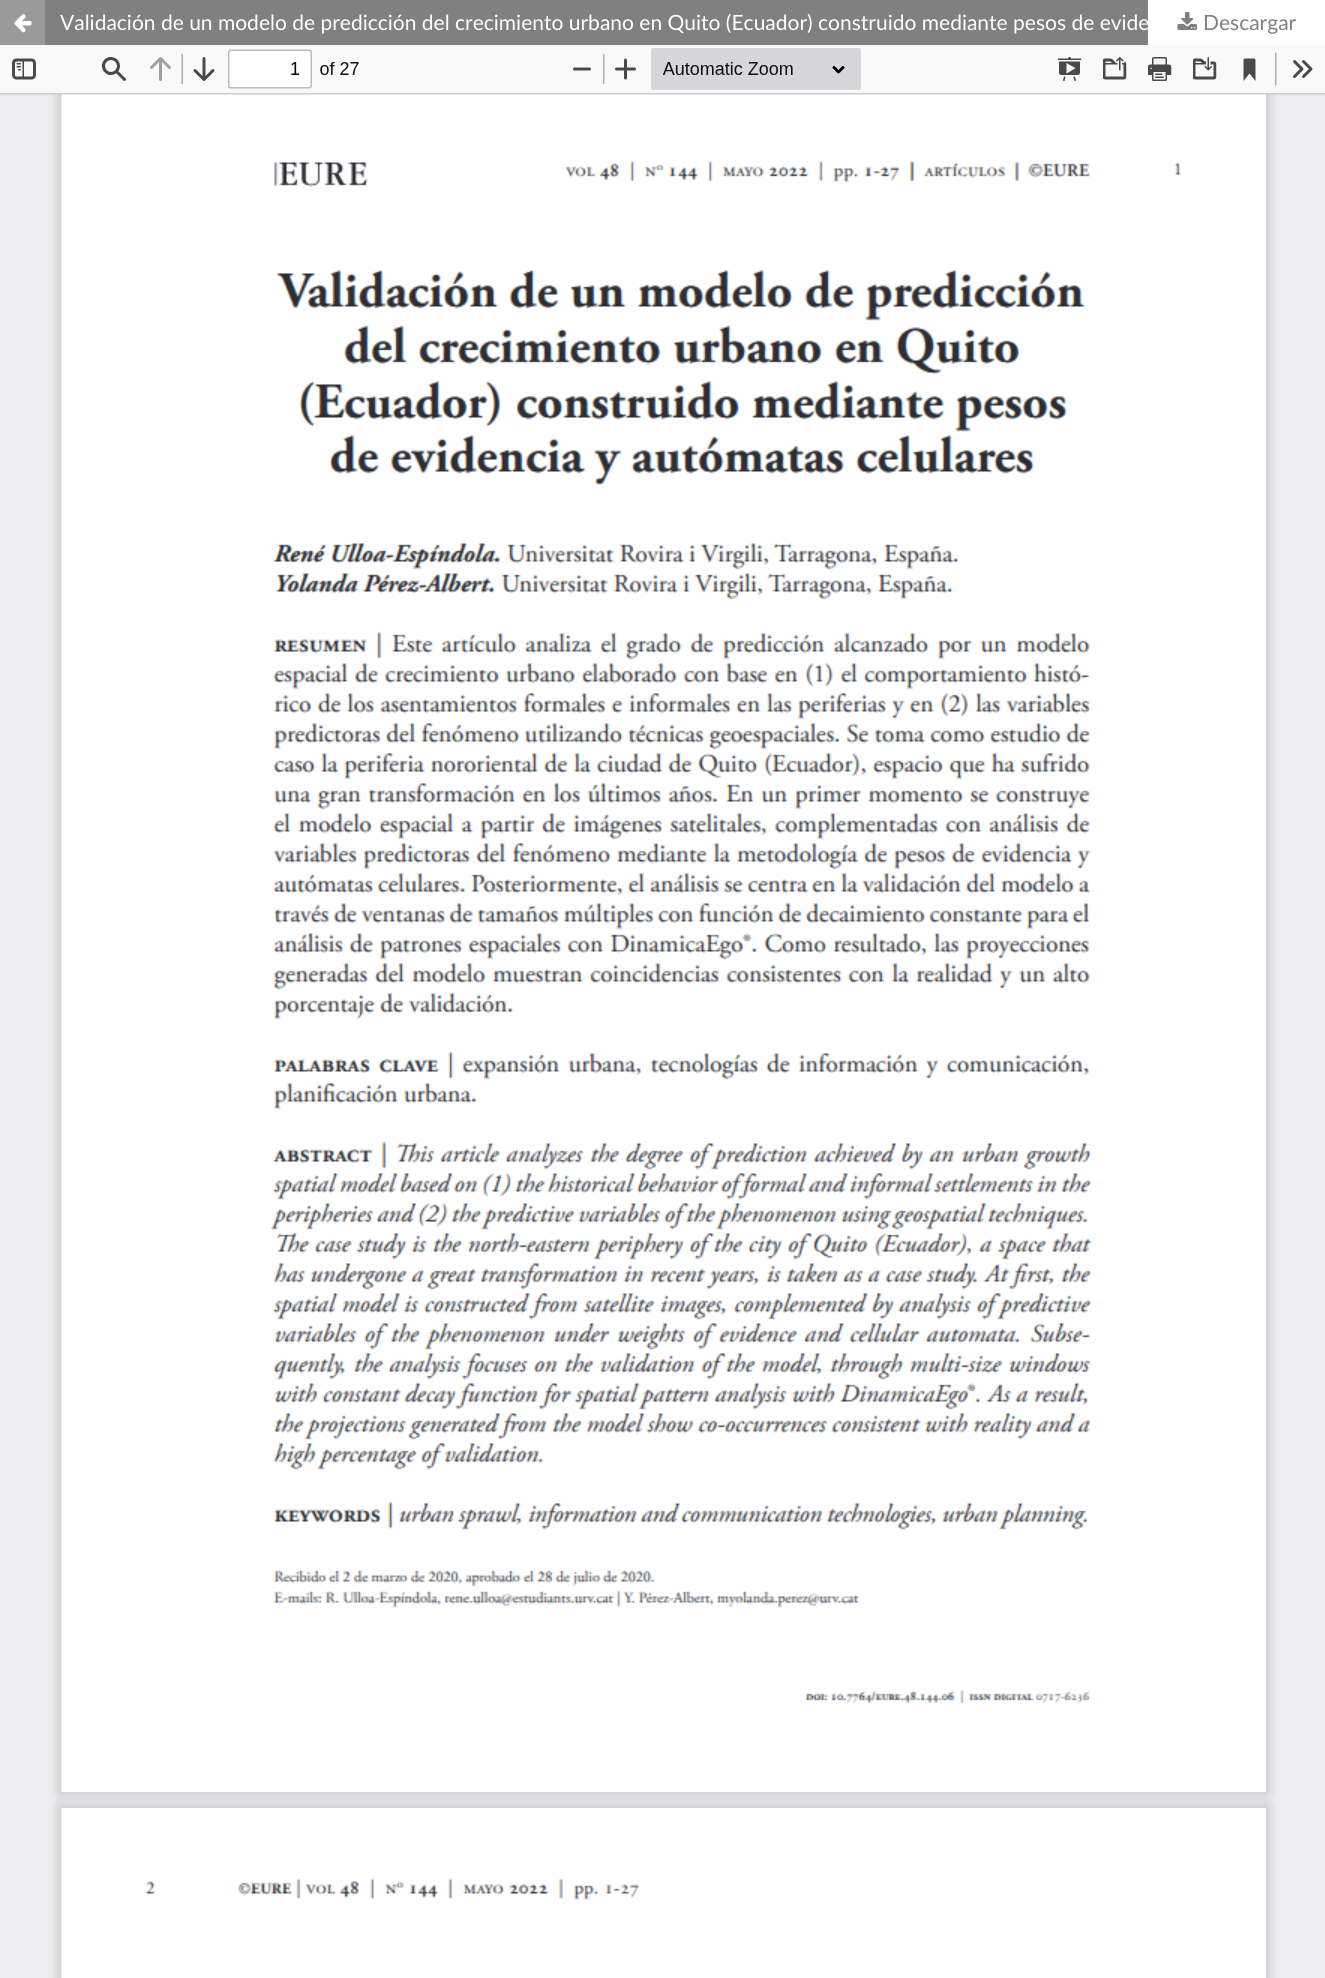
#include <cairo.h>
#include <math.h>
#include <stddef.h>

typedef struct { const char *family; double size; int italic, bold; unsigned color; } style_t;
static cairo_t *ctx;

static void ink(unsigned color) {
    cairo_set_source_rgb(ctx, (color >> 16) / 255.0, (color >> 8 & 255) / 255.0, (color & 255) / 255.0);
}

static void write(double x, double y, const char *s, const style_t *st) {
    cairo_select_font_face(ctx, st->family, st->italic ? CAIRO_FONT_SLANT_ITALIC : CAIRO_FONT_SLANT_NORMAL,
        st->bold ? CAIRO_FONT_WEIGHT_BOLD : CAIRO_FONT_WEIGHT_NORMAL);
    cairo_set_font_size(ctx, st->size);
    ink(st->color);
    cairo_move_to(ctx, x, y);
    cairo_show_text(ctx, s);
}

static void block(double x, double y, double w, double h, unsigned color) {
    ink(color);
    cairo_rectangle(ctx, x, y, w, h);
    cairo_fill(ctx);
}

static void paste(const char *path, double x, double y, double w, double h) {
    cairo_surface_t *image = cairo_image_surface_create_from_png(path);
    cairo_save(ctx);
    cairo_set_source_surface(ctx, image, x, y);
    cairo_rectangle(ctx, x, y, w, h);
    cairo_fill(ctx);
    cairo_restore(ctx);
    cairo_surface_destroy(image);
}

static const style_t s1 = {"Lato", 21, 0, 0, 0xffffff};
static const style_t s2 = {"Lato", 21, 0, 0, 0x808080};

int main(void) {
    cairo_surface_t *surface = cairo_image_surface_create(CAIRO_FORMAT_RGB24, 1325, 1978);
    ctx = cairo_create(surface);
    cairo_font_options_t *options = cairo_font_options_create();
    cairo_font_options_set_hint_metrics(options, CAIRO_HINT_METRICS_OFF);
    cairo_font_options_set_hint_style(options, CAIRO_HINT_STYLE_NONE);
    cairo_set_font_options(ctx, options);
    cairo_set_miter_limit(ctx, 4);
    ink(0xffffff);
    cairo_paint(ctx);
    block(45, 0, 1103, 45, 0x808080);
    block(0, 0, 45, 45, 0x9a9a9a);
    paste("pic1.png", 14, 14, 18, 19);
    write(60, 30, "Validación de un modelo de predicción del crecimiento urbano en Quito (Ecuador) construido mediante pesos de evide", &s1);
    paste("pic2.png", 1177, 12, 20, 18);
    write(1203, 30, "Descargar", &s2);
    paste("pic3.png", 0, 45, 1325, 1933);
    cairo_surface_write_to_png(surface, "screenshot.png");
    cairo_font_options_destroy(options);
    cairo_destroy(ctx);
    cairo_surface_destroy(surface);
    return 0;
}
